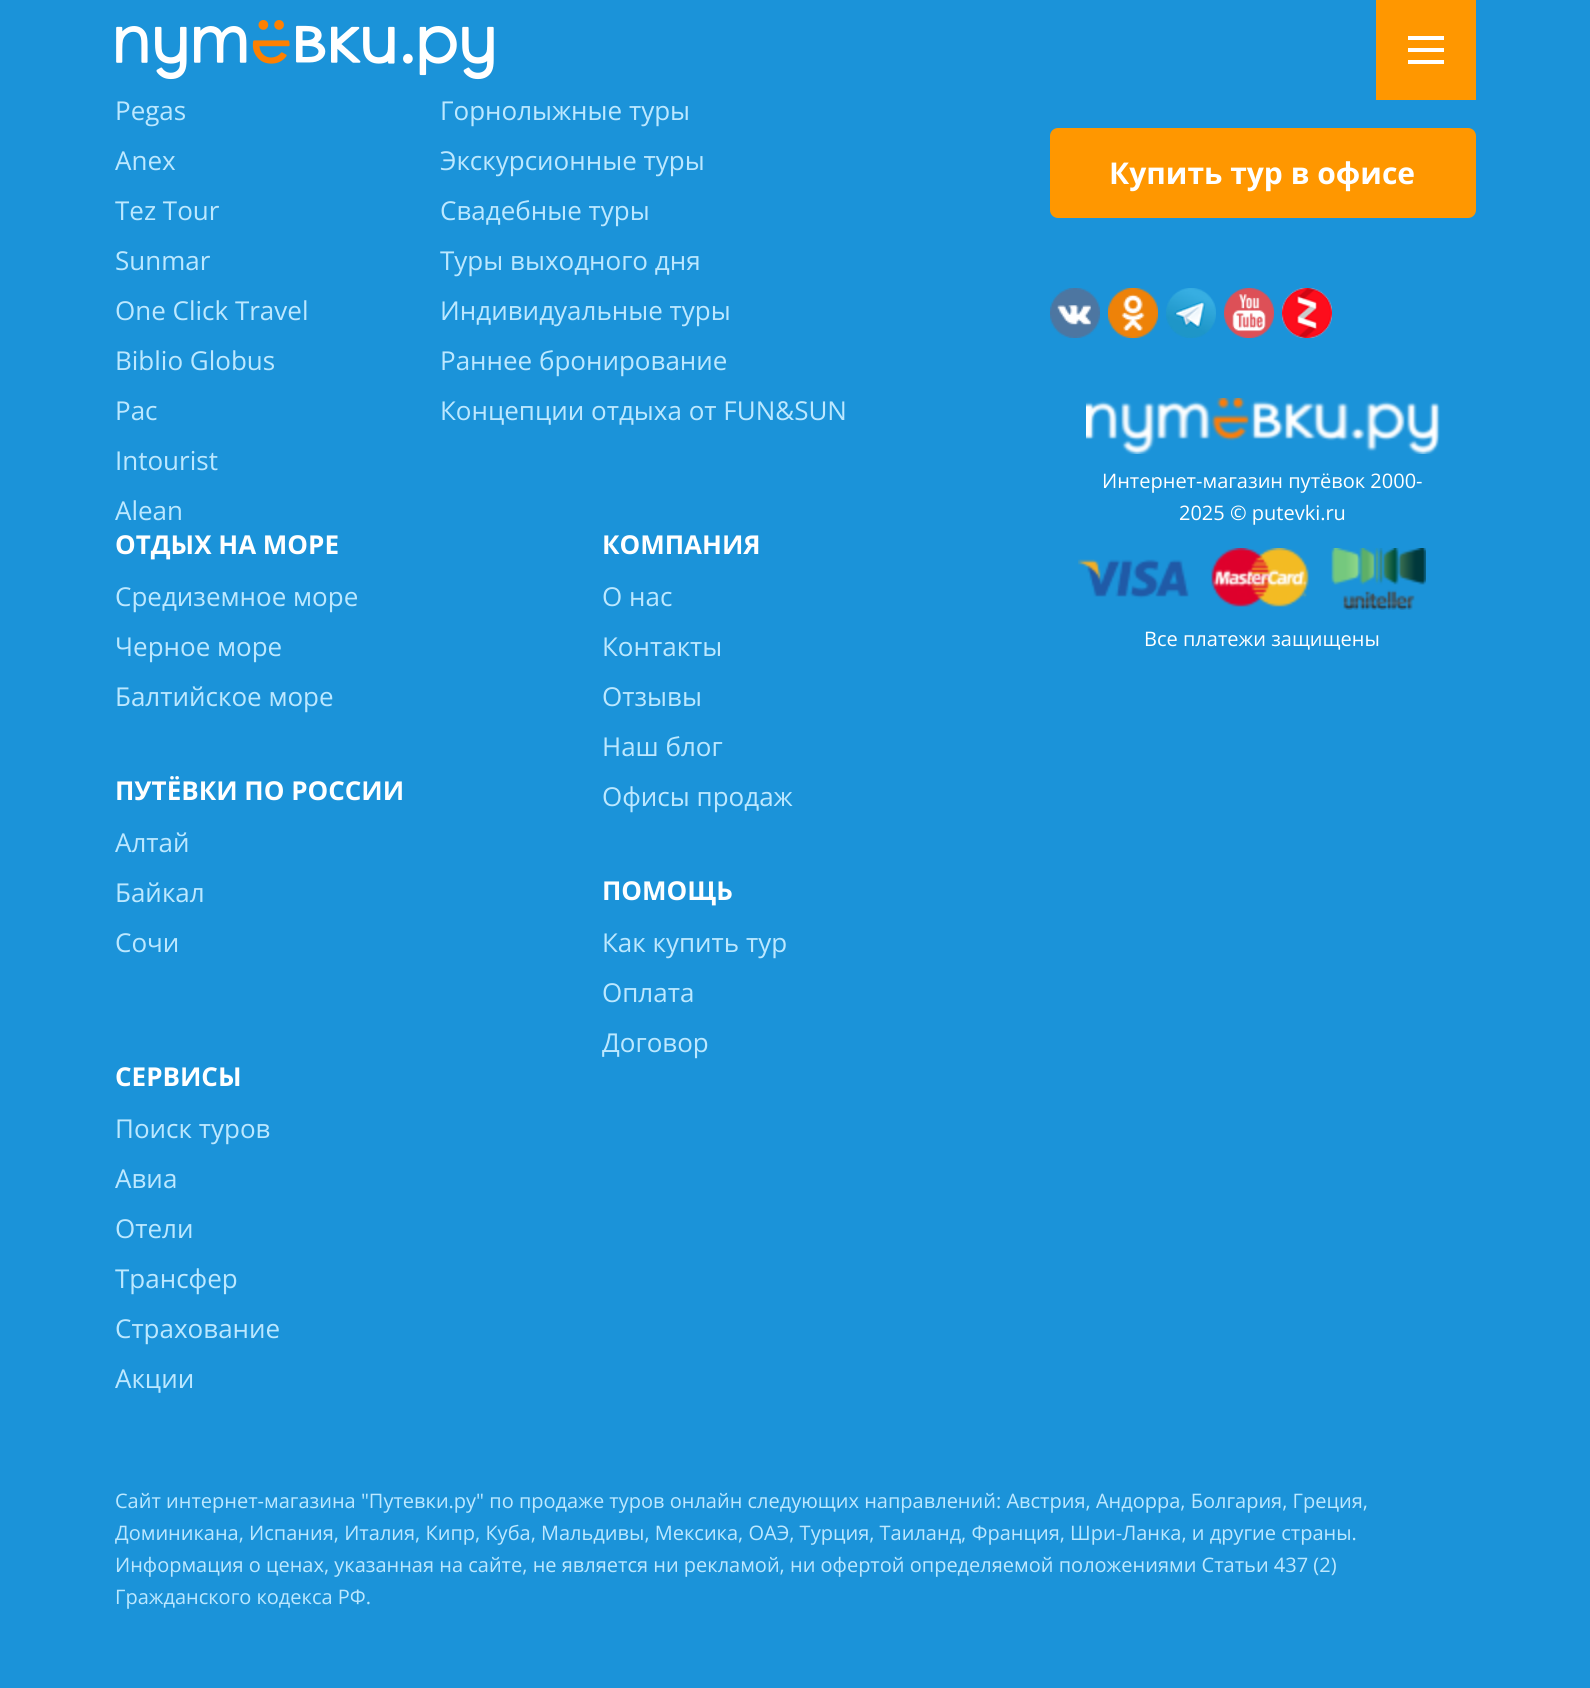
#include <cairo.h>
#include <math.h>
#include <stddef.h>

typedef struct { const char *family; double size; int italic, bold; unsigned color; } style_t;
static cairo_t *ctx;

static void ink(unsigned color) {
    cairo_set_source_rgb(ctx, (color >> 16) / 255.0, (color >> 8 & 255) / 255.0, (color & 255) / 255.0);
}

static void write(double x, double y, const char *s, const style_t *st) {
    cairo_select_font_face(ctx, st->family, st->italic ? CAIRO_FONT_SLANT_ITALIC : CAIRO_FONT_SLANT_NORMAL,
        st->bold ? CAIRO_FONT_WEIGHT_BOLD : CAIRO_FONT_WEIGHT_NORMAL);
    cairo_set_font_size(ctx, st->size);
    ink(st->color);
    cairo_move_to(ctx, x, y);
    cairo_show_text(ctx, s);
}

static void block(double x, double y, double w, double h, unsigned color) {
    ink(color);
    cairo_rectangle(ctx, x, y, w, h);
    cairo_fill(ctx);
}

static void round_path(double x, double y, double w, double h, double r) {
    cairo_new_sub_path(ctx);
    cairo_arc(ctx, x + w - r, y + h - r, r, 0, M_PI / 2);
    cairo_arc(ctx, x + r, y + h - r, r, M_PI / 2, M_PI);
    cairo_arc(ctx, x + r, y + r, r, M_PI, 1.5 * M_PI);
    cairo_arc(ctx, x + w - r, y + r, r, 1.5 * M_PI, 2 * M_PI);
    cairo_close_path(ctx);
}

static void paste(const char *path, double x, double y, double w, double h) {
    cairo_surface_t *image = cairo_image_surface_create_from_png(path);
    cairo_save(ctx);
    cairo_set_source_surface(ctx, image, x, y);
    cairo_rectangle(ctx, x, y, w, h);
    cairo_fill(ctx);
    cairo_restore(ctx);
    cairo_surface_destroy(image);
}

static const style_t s1 = {"Open Sans", 26, 0, 0, 0xbce8ff};
static const style_t s2 = {"Open Sans", 26, 0, 1, 0xffffff};
static const style_t s3 = {"Open Sans", 30, 0, 1, 0xffffff};
static const style_t s4 = {"Open Sans", 20, 0, 0, 0xffffff};
static const style_t s5 = {"Open Sans", 20, 0, 0, 0xbce8ff};

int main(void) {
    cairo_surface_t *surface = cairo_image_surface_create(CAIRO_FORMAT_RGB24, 1590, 1688);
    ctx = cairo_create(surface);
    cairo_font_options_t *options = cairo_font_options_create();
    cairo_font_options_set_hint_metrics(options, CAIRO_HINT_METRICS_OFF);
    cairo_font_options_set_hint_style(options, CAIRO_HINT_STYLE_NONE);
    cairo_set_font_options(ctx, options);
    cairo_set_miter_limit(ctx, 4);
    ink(0x1b93d9);
    cairo_paint(ctx);
    paste("pic1.png", 116, 20, 378, 60);
    block(1376, 0, 100, 100, 0xff9700);
    block(1408, 36, 36, 4, 0xffffff);
    block(1408, 48, 36, 4, 0xffffff);
    block(1408, 60, 36, 4, 0xffffff);
    write(115, 120, "Pegas", &s1);
    write(115, 170, "Anex", &s1);
    write(115, 220, "Tez Tour", &s1);
    write(115, 270, "Sunmar", &s1);
    write(115, 320, "One Click Travel", &s1);
    write(115, 370, "Biblio Globus", &s1);
    write(115, 420, "Pac", &s1);
    write(115, 470, "Intourist", &s1);
    write(115, 520, "Alean", &s1);
    write(440, 120, "Горнолыжные туры", &s1);
    write(440, 170, "Экскурсионные туры", &s1);
    write(440, 220, "Свадебные туры", &s1);
    write(440, 270, "Туры выходного дня", &s1);
    write(440, 320, "Индивидуальные туры", &s1);
    write(440, 370, "Раннее бронирование", &s1);
    write(440, 420, "Концепции отдыха от FUN&SUN", &s1);
    write(115, 554, "ОТДЫХ НА МОРЕ", &s2);
    write(115, 606, "Средиземное море", &s1);
    write(115, 656, "Черное море", &s1);
    write(115, 706, "Балтийское море", &s1);
    write(115, 800, "ПУТЁВКИ ПО РОССИИ", &s2);
    write(115, 852, "Алтай", &s1);
    write(115, 902, "Байкал", &s1);
    write(115, 952, "Сочи", &s1);
    write(602, 554, "КОМПАНИЯ", &s2);
    write(602, 606, "О нас", &s1);
    write(602, 656, "Контакты", &s1);
    write(602, 706, "Отзывы", &s1);
    write(602, 756, "Наш блог", &s1);
    write(602, 806, "Офисы продаж", &s1);
    write(602, 900, "ПОМОЩЬ", &s2);
    write(602, 952, "Как купить тур", &s1);
    write(602, 1002, "Оплата", &s1);
    write(602, 1052, "Договор", &s1);
    write(115, 1086, "СЕРВИСЫ", &s2);
    write(115, 1138, "Поиск туров", &s1);
    write(115, 1188, "Авиа", &s1);
    write(115, 1238, "Отели", &s1);
    write(115, 1288, "Трансфер", &s1);
    write(115, 1338, "Страхование", &s1);
    write(115, 1388, "Акции", &s1);
    ink(0xff9700);
    round_path(1050, 128, 426, 90, 8);
    cairo_fill(ctx);
    write(1109, 184, "Купить тур в офисе", &s3);
    paste("pic2.png", 1050, 288, 50, 50);
    paste("pic3.png", 1108, 288, 50, 50);
    paste("pic4.png", 1166, 288, 50, 50);
    paste("pic5.png", 1224, 288, 50, 50);
    paste("pic6.png", 1282, 288, 50, 50);
    paste("pic7.png", 1086, 398, 354, 56);
    write(1102, 488, "Интернет-магазин путёвок 2000-", &s4);
    write(1179, 520, "2025 © putevki.ru", &s4);
    paste("pic8.png", 1078, 548, 348, 62);
    write(1144, 646, "Все платежи защищены", &s4);
    write(115, 1508, "Сайт интернет-магазина \"Путевки.ру\" по продаже туров онлайн следующих направлений: Австрия, Андорра, Болгария, Греция,", &s5);
    write(115, 1540, "Доминикана, Испания, Италия, Кипр, Куба, Мальдивы, Мексика, ОАЭ, Турция, Таиланд, Франция, Шри-Ланка, и другие страны.", &s5);
    write(115, 1572, "Информация о ценах, указанная на сайте, не является ни рекламой, ни офертой определяемой положениями Статьи 437 (2)", &s5);
    write(115, 1604, "Гражданского кодекса РФ.", &s5);
    cairo_surface_write_to_png(surface, "screenshot.png");
    cairo_font_options_destroy(options);
    cairo_destroy(ctx);
    cairo_surface_destroy(surface);
    return 0;
}
